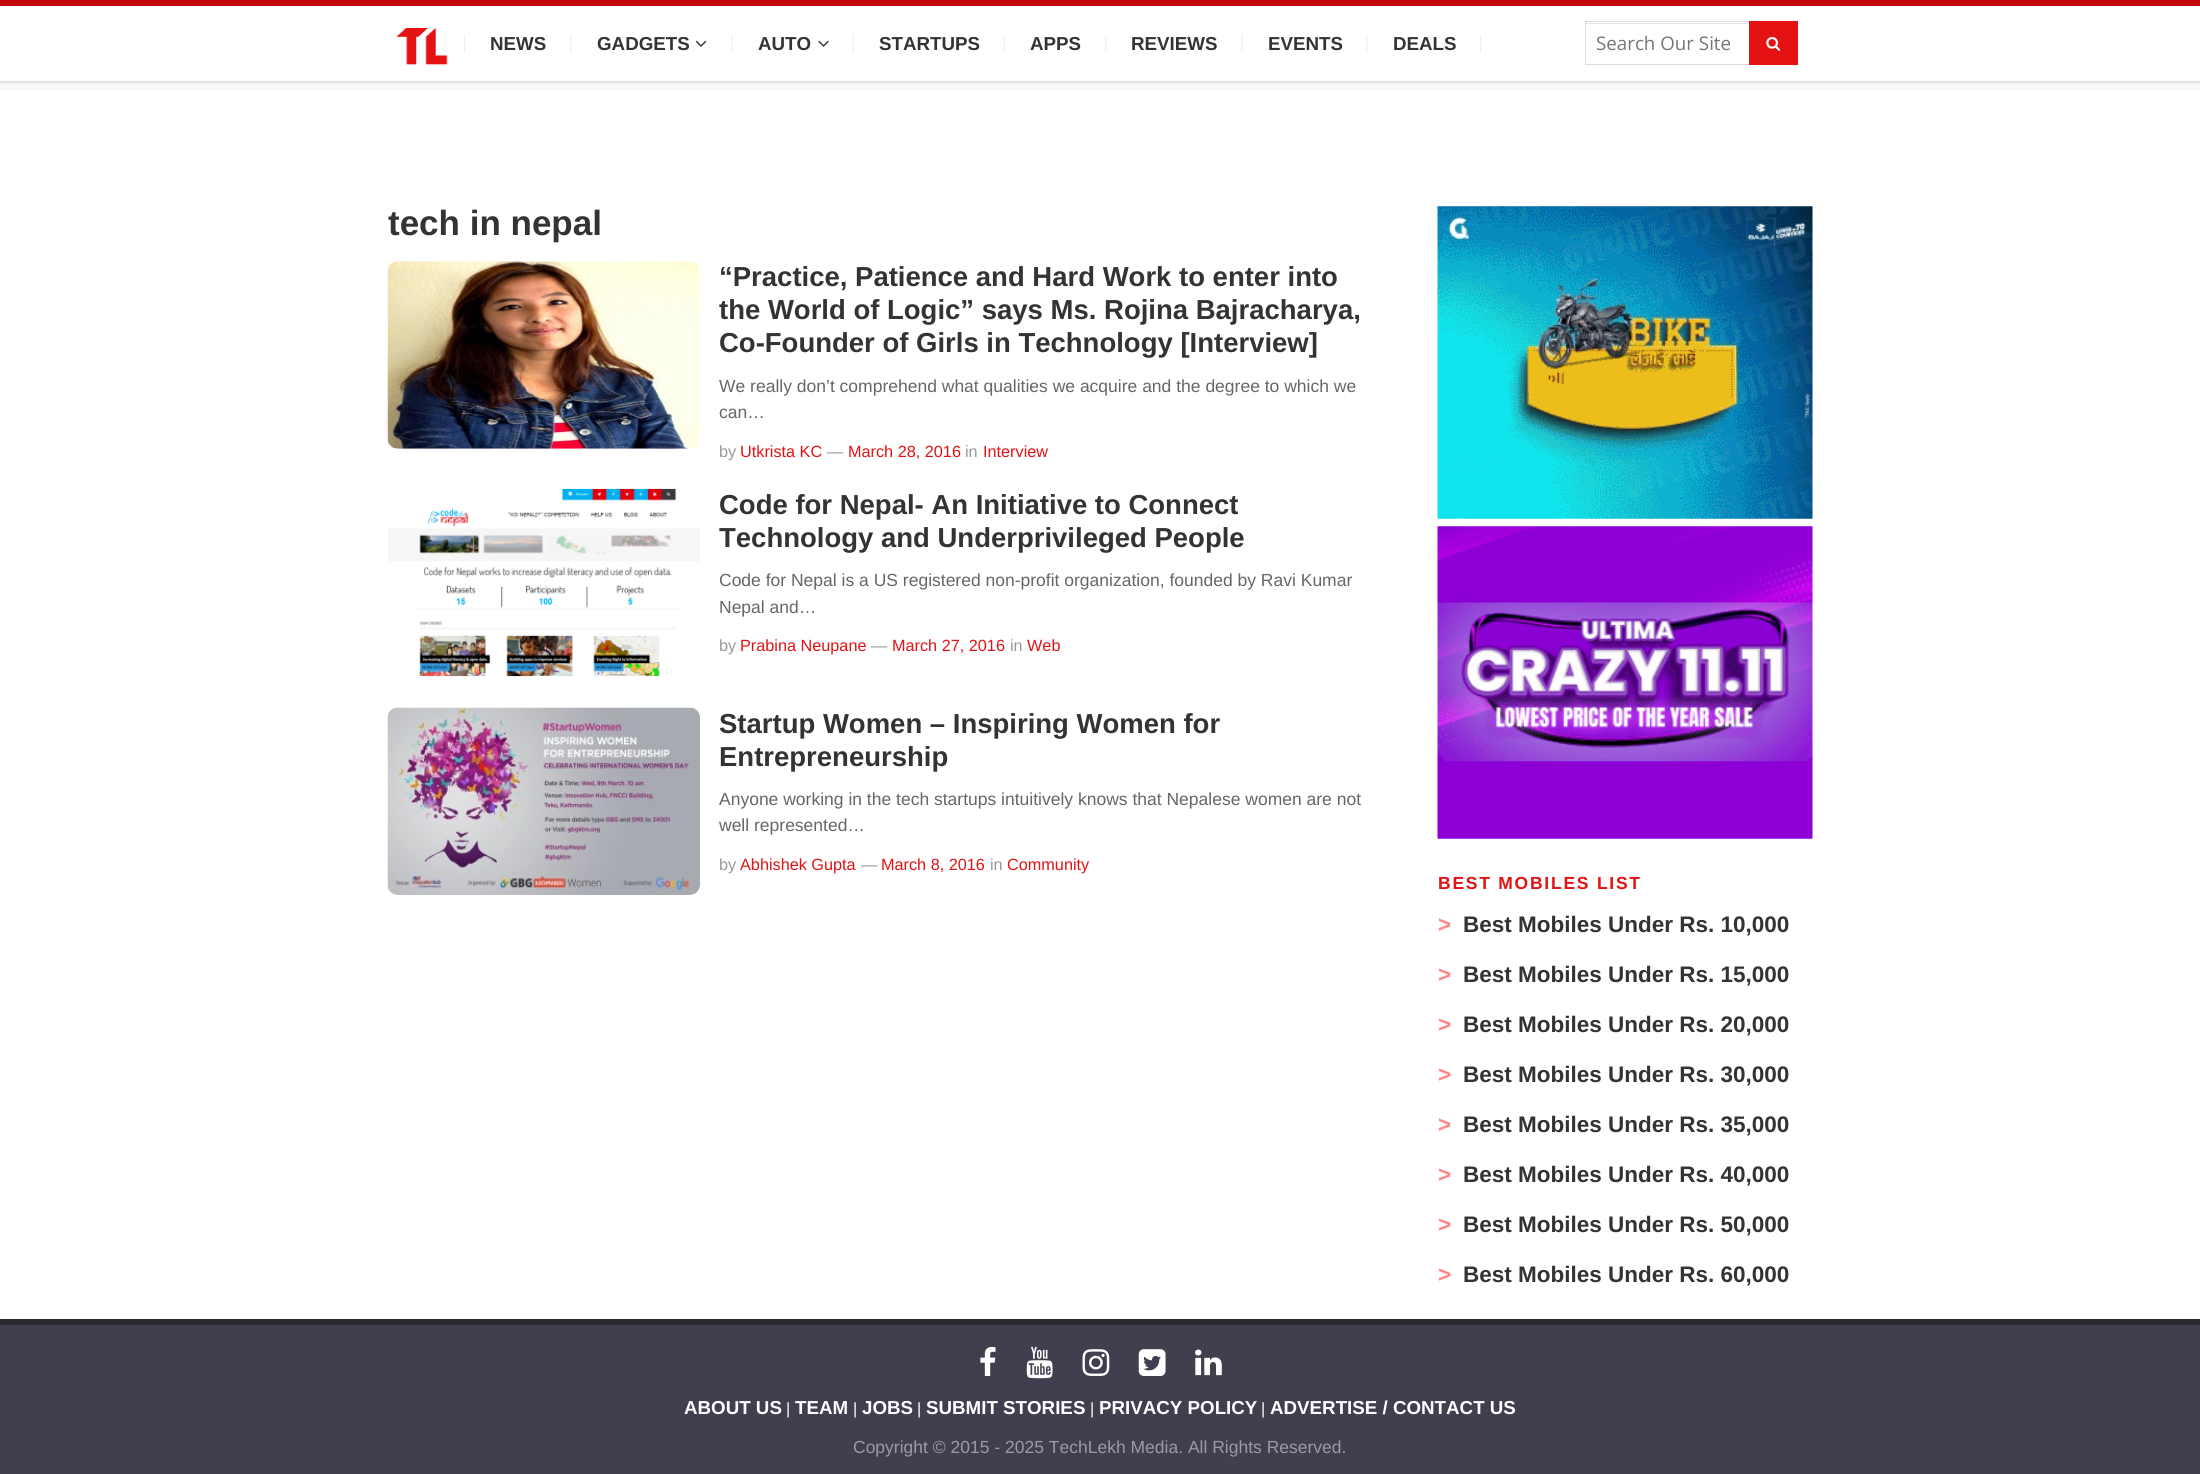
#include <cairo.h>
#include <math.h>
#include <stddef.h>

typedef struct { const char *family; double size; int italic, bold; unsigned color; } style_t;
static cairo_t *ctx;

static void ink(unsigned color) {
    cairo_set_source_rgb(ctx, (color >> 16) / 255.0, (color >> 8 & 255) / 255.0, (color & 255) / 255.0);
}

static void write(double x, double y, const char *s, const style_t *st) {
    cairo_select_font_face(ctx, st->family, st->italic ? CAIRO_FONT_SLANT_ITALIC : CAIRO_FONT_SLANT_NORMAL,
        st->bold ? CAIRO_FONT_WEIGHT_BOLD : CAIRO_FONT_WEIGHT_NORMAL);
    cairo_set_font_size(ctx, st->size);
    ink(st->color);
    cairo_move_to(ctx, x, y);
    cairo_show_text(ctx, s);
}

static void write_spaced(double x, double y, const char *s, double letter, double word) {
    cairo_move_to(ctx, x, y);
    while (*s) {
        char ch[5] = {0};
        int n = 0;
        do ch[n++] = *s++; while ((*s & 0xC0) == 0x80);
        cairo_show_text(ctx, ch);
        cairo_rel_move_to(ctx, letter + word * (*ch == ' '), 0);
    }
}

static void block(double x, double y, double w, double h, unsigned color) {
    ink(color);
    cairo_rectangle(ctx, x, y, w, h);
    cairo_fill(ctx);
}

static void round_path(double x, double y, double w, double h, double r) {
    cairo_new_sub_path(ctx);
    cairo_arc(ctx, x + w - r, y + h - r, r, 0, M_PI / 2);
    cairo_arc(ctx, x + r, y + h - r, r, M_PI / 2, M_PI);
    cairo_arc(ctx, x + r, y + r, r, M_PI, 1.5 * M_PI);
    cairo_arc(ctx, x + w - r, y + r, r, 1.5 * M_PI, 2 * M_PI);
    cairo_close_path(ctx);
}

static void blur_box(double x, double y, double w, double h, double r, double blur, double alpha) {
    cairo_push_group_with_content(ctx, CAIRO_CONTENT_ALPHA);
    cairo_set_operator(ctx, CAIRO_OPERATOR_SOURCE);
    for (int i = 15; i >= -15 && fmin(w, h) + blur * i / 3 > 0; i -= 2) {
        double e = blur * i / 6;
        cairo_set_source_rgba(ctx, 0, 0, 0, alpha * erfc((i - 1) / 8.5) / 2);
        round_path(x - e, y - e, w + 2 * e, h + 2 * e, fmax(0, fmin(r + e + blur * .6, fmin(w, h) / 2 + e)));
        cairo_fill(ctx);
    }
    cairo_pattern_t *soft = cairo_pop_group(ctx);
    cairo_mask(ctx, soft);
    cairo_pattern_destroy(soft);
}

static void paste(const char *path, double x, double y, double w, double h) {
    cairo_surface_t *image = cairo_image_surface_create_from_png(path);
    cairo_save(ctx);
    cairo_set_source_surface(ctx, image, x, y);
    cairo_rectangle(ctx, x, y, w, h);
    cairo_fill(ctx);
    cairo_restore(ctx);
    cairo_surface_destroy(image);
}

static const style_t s1 = {"Liberation Sans", 18.75, 0, 1, 0x333333};
static const style_t s2 = {"Open Sans", 18.75, 0, 0, 0x757575};
static const style_t s3 = {"Liberation Sans", 35, 0, 1, 0x333333};
static const style_t s4 = {"Liberation Sans", 27.5, 0, 1, 0x333333};
static const style_t s5 = {"Liberation Sans", 17.5, 0, 0, 0x666666};
static const style_t s6 = {"Liberation Sans", 16.25, 0, 0, 0x999999};
static const style_t s7 = {"Liberation Sans", 16.25, 0, 0, 0xe41212};
static const style_t s8 = {"Liberation Sans", 22.5, 0, 1, 0xff8383};
static const style_t s9 = {"Liberation Sans", 22.5, 0, 1, 0x333333};
static const style_t s10 = {"Liberation Sans", 18.75, 0, 1, 0xffffff};
static const style_t s11 = {"Liberation Sans", 16.25, 0, 0, 0xffffff};
static const style_t s12 = {"Liberation Sans", 17.5, 0, 0, 0x9b99a6};

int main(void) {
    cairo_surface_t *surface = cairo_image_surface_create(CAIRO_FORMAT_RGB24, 2200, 1474);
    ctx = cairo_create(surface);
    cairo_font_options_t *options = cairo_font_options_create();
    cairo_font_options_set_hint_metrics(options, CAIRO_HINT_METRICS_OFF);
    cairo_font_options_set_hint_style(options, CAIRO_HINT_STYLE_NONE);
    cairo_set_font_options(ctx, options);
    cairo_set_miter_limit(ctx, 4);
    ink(0xffffff);
    cairo_paint(ctx);
    block(0, 81, 2200, 10, 0xf9f9f9);
    block(0, 0, 2200, 6, 0xc4000d);
    ink(0x000000);
    blur_box(0, 8, 2200, 75, 0, 1, 0.1);
    block(0, 7, 2200, 74, 0xffffff);
    paste("pic1.png", 463, 35, 2, 18);
    paste("pic2.png", 396, 28, 52, 37);
    paste("pic3.png", 570, 35, 2, 18);
    write(490, 50, "NEWS", &s1);
    paste("pic4.png", 731, 35, 2, 18);
    write(597, 50, "GADGETS", &s1);
    paste("pic5.png", 695, 40, 12, 7);
    paste("pic6.png", 852, 35, 2, 18);
    write(758, 50, "AUTO", &s1);
    paste("pic7.png", 818, 40, 11, 7);
    paste("pic1.png", 1003, 35, 2, 18);
    write(879, 50, "STARTUPS", &s1);
    paste("pic3.png", 1105, 35, 2, 18);
    write(1030, 50, "APPS", &s1);
    paste("pic4.png", 1241, 35, 2, 18);
    write(1131, 50, "REVIEWS", &s1);
    paste("pic4.png", 1366, 35, 2, 18);
    write(1268, 50, "EVENTS", &s1);
    paste("pic3.png", 1480, 35, 2, 18);
    write(1393, 50, "DEALS", &s1);
    block(1586, 23, 163, 1, 0xe6e6e6);
    cairo_rectangle(ctx, 1585.5, 21.5, 212, 43);
    ink(0xdddddd);
    cairo_set_line_width(ctx, 1);
    cairo_stroke(ctx);
    write(1596, 50, "Search Our Site", &s2);
    block(1749, 21, 49, 44, 0xe41212);
    paste("pic8.png", 1766, 37, 15, 14);
    write(388, 235, "tech in nepal", &s3);
    paste("pic9.png", 387, 261, 313, 188);
    write(719, 286, "“Practice, Patience and Hard Work to enter into", &s4);
    write(719, 319, "the World of Logic” says Ms. Rojina Bajracharya,", &s4);
    write(719, 352, "Co-Founder of Girls in Technology [Interview]", &s4);
    write(719, 392, "We really don’t comprehend what qualities we acquire and the degree to which we", &s5);
    write(719, 418, "can…", &s5);
    write(719, 457, "by", &s6);
    write(740, 457, "Utkrista KC", &s7);
    write(827, 457, "—", &s6);
    write(848, 457, "March 28, 2016", &s7);
    write(965, 457, "in", &s6);
    write(983, 457, "Interview", &s7);
    paste("pic10.png", 388, 488, 312, 189);
    write(719, 514, "Code for Nepal- An Initiative to Connect", &s4);
    write(719, 547, "Technology and Underprivileged People", &s4);
    write(719, 586, "Code for Nepal is a US registered non-profit organization, founded by Ravi Kumar", &s5);
    write(719, 613, "Nepal and…", &s5);
    write(719, 651, "by", &s6);
    write(740, 651, "Prabina Neupane", &s7);
    write(871, 651, "—", &s6);
    write(892, 651, "March 27, 2016", &s7);
    write(1010, 651, "in", &s6);
    write(1027, 651, "Web", &s7);
    paste("pic11.png", 387, 707, 313, 188);
    write(719, 733, "Startup Women – Inspiring Women for", &s4);
    write(719, 766, "Entrepreneurship", &s4);
    write(719, 805, "Anyone working in the tech startups intuitively knows that Nepalese women are not", &s5);
    write(719, 831, "well represented…", &s5);
    write(719, 870, "by", &s6);
    write(740, 870, "Abhishek Gupta", &s7);
    write(861, 870, "—", &s6);
    write(881, 870, "March 8, 2016", &s7);
    write(990, 870, "in", &s6);
    write(1007, 870, "Community", &s7);
    paste("pic12.png", 1437, 206, 376, 313);
    paste("pic13.png", 1437, 526, 376, 313);
    cairo_select_font_face(ctx, "Liberation Sans", CAIRO_FONT_SLANT_NORMAL, CAIRO_FONT_WEIGHT_BOLD);
    cairo_set_font_size(ctx, 17.5);
    write_spaced(1438, 889, "BEST MOBILES LIST", 1.75, 0);
    write(1438, 932, ">", &s8);
    write(1463, 932, "Best Mobiles Under Rs. 10,000", &s9);
    write(1438, 982, ">", &s8);
    write(1463, 982, "Best Mobiles Under Rs. 15,000", &s9);
    write(1438, 1032, ">", &s8);
    write(1463, 1032, "Best Mobiles Under Rs. 20,000", &s9);
    write(1438, 1082, ">", &s8);
    write(1463, 1082, "Best Mobiles Under Rs. 30,000", &s9);
    write(1438, 1132, ">", &s8);
    write(1463, 1132, "Best Mobiles Under Rs. 35,000", &s9);
    write(1438, 1182, ">", &s8);
    write(1463, 1182, "Best Mobiles Under Rs. 40,000", &s9);
    write(1438, 1232, ">", &s8);
    write(1463, 1232, "Best Mobiles Under Rs. 50,000", &s9);
    write(1438, 1282, ">", &s8);
    write(1463, 1282, "Best Mobiles Under Rs. 60,000", &s9);
    block(0, 1325, 2200, 149, 0x413f4e);
    block(0, 1319, 2200, 6, 0x2b2a32);
    paste("pic14.png", 980, 1347, 16, 29);
    paste("pic15.png", 1026, 1346, 27, 33);
    paste("pic16.png", 1082, 1349, 28, 27);
    paste("pic17.png", 1138, 1349, 28, 27);
    paste("pic18.png", 1195, 1349, 27, 27);
    write(684, 1414, "ABOUT US", &s10);
    write(786, 1414, "|", &s11);
    write(795, 1414, "TEAM", &s10);
    write(853, 1414, "|", &s11);
    write(862, 1414, "JOBS", &s10);
    write(917, 1414, "|", &s11);
    write(926, 1414, "SUBMIT STORIES", &s10);
    write(1090, 1414, "|", &s11);
    write(1099, 1414, "PRIVACY POLICY", &s10);
    write(1261, 1414, "|", &s11);
    write(1270, 1414, "ADVERTISE / CONTACT US", &s10);
    write(853, 1453, "Copyright © 2015 - 2025 TechLekh Media. All Rights Reserved.", &s12);
    cairo_surface_write_to_png(surface, "screenshot.png");
    cairo_font_options_destroy(options);
    cairo_destroy(ctx);
    cairo_surface_destroy(surface);
    return 0;
}
